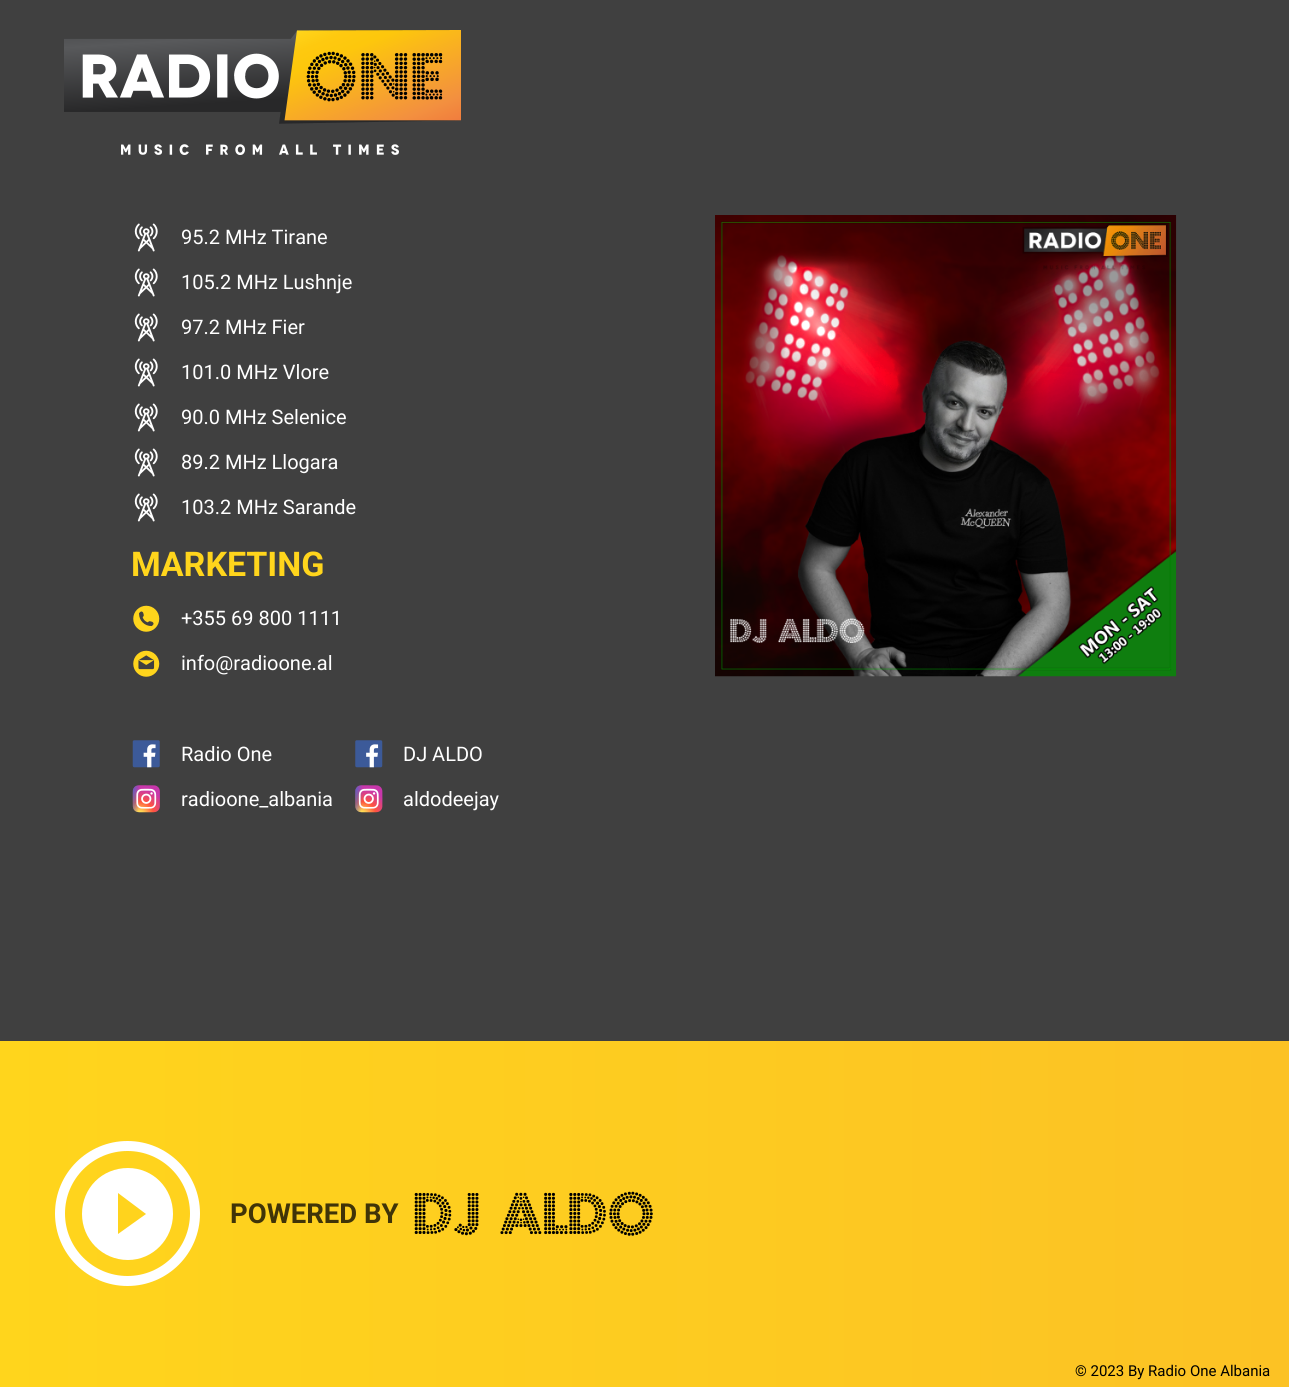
#include <cairo.h>
#include <math.h>
#include <stddef.h>

typedef struct { const char *family; double size; int italic, bold; unsigned color; } style_t;
static cairo_t *ctx;

static void ink(unsigned color) {
    cairo_set_source_rgb(ctx, (color >> 16) / 255.0, (color >> 8 & 255) / 255.0, (color & 255) / 255.0);
}

static void write(double x, double y, const char *s, const style_t *st) {
    cairo_select_font_face(ctx, st->family, st->italic ? CAIRO_FONT_SLANT_ITALIC : CAIRO_FONT_SLANT_NORMAL,
        st->bold ? CAIRO_FONT_WEIGHT_BOLD : CAIRO_FONT_WEIGHT_NORMAL);
    cairo_set_font_size(ctx, st->size);
    ink(st->color);
    cairo_move_to(ctx, x, y);
    cairo_show_text(ctx, s);
}

static void paste(const char *path, double x, double y, double w, double h) {
    cairo_surface_t *image = cairo_image_surface_create_from_png(path);
    cairo_save(ctx);
    cairo_set_source_surface(ctx, image, x, y);
    cairo_rectangle(ctx, x, y, w, h);
    cairo_fill(ctx);
    cairo_restore(ctx);
    cairo_surface_destroy(image);
}

static const style_t s1 = {"Roboto", 20, 0, 0, 0xffffff};
static const style_t s2 = {"Roboto", 34, 0, 1, 0xffd51c};
static const style_t s3 = {"Roboto", 27.5, 0, 1, 0x403408};
static const style_t s4 = {"Roboto", 15, 0, 0, 0x000000};

int main(void) {
    cairo_surface_t *surface = cairo_image_surface_create(CAIRO_FORMAT_RGB24, 1289, 1387);
    ctx = cairo_create(surface);
    cairo_font_options_t *options = cairo_font_options_create();
    cairo_font_options_set_hint_metrics(options, CAIRO_HINT_METRICS_OFF);
    cairo_font_options_set_hint_style(options, CAIRO_HINT_STYLE_NONE);
    cairo_set_font_options(ctx, options);
    cairo_set_miter_limit(ctx, 4);
    cairo_pattern_t *gradient;
    ink(0x404040);
    cairo_paint(ctx);
    paste("pic1.png", 64, 30, 397, 125);
    paste("pic2.png", 134, 223, 24, 29);
    write(181, 244, "95.2 MHz Tirane", &s1);
    paste("pic2.png", 134, 268, 24, 29);
    write(181, 289, "105.2 MHz Lushnje", &s1);
    paste("pic2.png", 134, 313, 24, 29);
    write(181, 334, "97.2 MHz Fier", &s1);
    paste("pic2.png", 134, 358, 24, 29);
    write(181, 379, "101.0 MHz Vlore", &s1);
    paste("pic2.png", 134, 403, 24, 29);
    write(181, 424, "90.0 MHz Selenice", &s1);
    paste("pic2.png", 134, 448, 24, 29);
    write(181, 469, "89.2 MHz Llogara", &s1);
    paste("pic2.png", 134, 493, 24, 29);
    write(181, 514, "103.2 MHz Sarande", &s1);
    write(131, 576, "MARKETING", &s2);
    paste("pic3.png", 133, 605, 27, 27);
    write(181, 625, "+355 69 800 1111", &s1);
    paste("pic4.png", 133, 650, 27, 27);
    write(181, 670, "info@radioone.al", &s1);
    paste("pic5.png", 132, 740, 28, 28);
    write(181, 761, "Radio One", &s1);
    paste("pic6.png", 132, 785, 28, 28);
    write(181, 806, "radioone_albania", &s1);
    paste("pic7.png", 355, 740, 28, 28);
    write(403, 761, "DJ ALDO", &s1);
    paste("pic8.png", 355, 785, 28, 28);
    write(403, 806, "aldodeejay", &s1);
    paste("pic9.png", 715, 215, 462, 462);
    gradient = cairo_pattern_create_linear(0, 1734, 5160, 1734);
    cairo_pattern_add_color_stop_rgba(gradient, 0, 1, 0.835, 0.11, 1);
    cairo_pattern_add_color_stop_rgba(gradient, 1, 0.949, 0.537, 0.243, 1);
    cairo_set_source(ctx, gradient);
    cairo_pattern_destroy(gradient);
    cairo_rectangle(ctx, 0, 1041, 1289, 346);
    cairo_fill(ctx);
    cairo_arc(ctx, 127.5, 1213.5, 67.5, 0, 2 * M_PI);
    ink(0xffffff);
    cairo_set_line_width(ctx, 10);
    cairo_stroke(ctx);
    cairo_new_path(ctx);
    cairo_move_to(ctx, 128, 1168);
    cairo_curve_to(ctx, 102, 1168, 82, 1188, 82, 1214);
    cairo_curve_to(ctx, 82, 1239, 102, 1260, 128, 1260);
    cairo_curve_to(ctx, 153, 1260, 173, 1239, 173, 1214);
    cairo_curve_to(ctx, 173, 1188, 153, 1168, 128, 1168);
    cairo_close_path(ctx);
    cairo_move_to(ctx, 118, 1234);
    cairo_line_to(ctx, 118, 1193);
    cairo_line_to(ctx, 146, 1214);
    cairo_close_path(ctx);
    cairo_fill(ctx);
    write(230, 1223, "POWERED BY", &s3);
    paste("pic10.png", 414, 1191, 239, 45);
    write(1075, 1376, "© 2023 By Radio One Albania", &s4);
    cairo_surface_write_to_png(surface, "screenshot.png");
    cairo_font_options_destroy(options);
    cairo_destroy(ctx);
    cairo_surface_destroy(surface);
    return 0;
}
